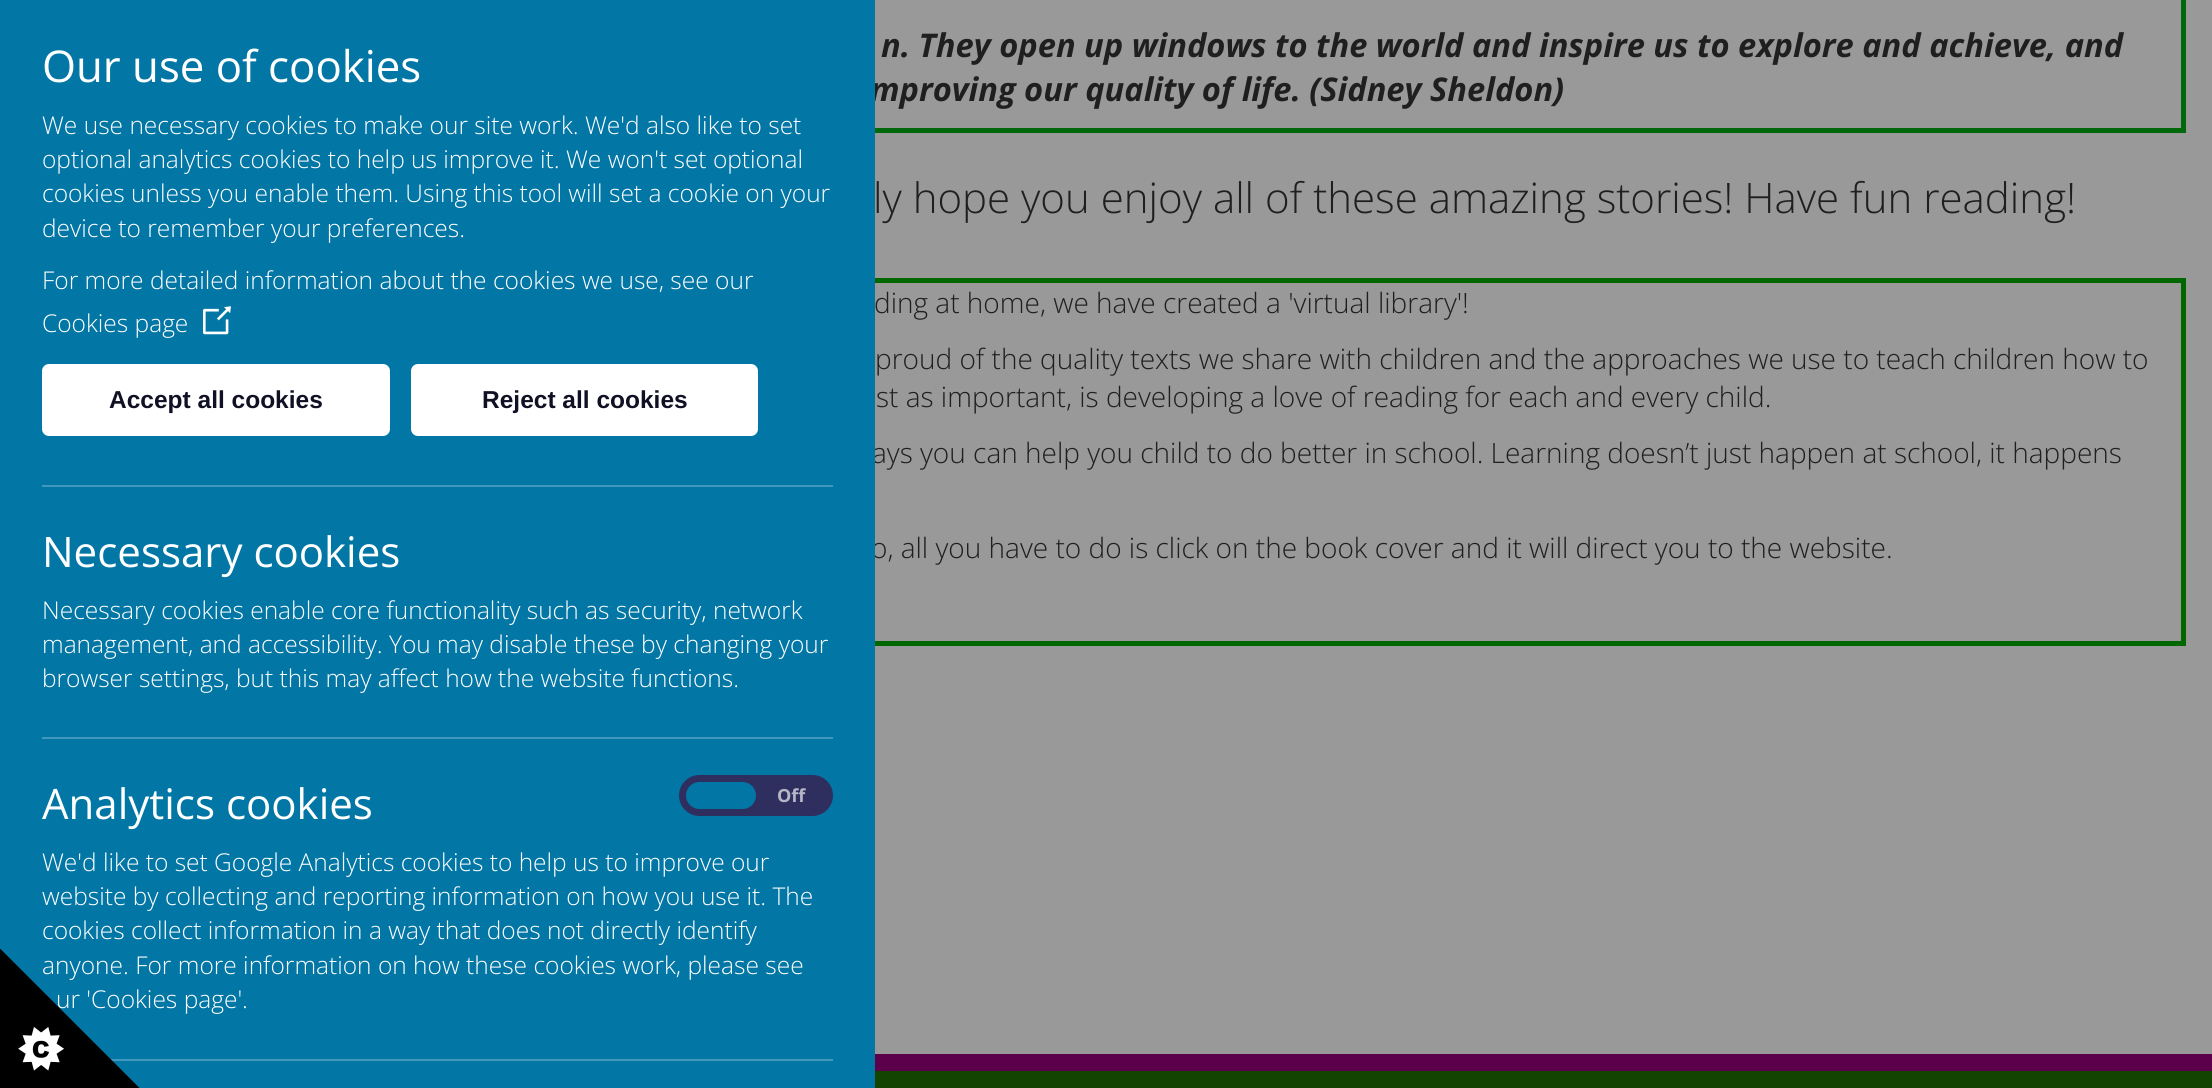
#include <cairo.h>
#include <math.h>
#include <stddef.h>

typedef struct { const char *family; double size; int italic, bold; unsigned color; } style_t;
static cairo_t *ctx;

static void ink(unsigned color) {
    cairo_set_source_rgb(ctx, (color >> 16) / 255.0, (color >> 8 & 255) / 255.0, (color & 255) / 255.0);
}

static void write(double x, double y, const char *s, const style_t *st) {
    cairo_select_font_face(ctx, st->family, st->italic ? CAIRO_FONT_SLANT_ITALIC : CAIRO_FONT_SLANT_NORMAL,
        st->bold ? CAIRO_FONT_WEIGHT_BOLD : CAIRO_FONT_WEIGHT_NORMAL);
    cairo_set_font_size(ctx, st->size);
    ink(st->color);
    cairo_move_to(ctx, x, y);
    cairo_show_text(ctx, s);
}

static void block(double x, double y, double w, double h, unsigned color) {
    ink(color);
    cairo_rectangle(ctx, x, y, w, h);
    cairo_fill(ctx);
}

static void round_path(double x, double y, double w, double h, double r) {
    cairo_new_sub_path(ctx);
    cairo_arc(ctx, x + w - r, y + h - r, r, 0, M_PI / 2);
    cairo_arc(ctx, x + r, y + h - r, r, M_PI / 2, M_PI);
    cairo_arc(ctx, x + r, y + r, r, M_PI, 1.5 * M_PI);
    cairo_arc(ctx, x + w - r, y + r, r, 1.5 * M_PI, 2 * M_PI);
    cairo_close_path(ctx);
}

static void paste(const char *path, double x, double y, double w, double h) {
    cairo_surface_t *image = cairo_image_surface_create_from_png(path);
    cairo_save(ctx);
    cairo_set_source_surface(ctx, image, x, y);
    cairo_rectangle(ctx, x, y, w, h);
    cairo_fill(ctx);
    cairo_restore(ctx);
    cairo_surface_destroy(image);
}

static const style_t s1 = {"Open Sans", 32.65, 1, 1, 0x1f1f1f};
static const style_t s2 = {"Open Sans Light", 28, 0, 0, 0x1f1f1f};
static const style_t s3 = {"Open Sans", 43.75, 0, 0, 0xffffff};
static const style_t s4 = {"Open Sans Light", 24.5, 0, 0, 0xffffff};
static const style_t s5 = {"Liberation Sans", 24.5, 0, 1, 0x111125};
static const style_t s6 = {"Open Sans", 42, 0, 0, 0xffffff};
static const style_t s7 = {"Open Sans", 18, 0, 1, 0xb6b6c7};
static const style_t s8 = {"Open Sans Light", 42, 0, 0, 0x1f1f1f};

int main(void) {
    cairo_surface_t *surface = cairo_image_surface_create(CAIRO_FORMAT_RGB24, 2212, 1088);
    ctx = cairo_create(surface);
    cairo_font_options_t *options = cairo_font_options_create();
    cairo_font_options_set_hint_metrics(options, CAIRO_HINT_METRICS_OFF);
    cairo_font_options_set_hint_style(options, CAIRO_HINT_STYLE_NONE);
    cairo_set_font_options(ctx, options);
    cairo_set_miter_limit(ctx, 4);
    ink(0x999999);
    cairo_paint(ctx);
    block(875, 1071, 1337, 17, 0x144401);
    write(870, 101, "mproving our quality of life. (Sidney Sheldon)", &s1);
    write(872, 463, "ays you can help you child to do better in school. Learning doesn’t just happen at school, it happens", &s2);
    write(871, 558, "o, all you have to do is click on the book cover and it will direct you to the website.", &s2);
    block(0, 0, 875, 1088, 0x0276a5);
    write(42, 82, "Our use of cookies", &s3);
    write(42, 134, "We use necessary cookies to make our site work. We'd also like to set", &s4);
    write(42, 168, "optional analytics cookies to help us improve it. We won't set optional", &s4);
    write(42, 202, "cookies unless you enable them. Using this tool will set a cookie on your", &s4);
    write(42, 237, "device to remember your preferences.", &s4);
    write(42, 289, "For more detailed information about the cookies we use, see our", &s4);
    write(42, 332, "Cookies page", &s4);
    paste("pic1.png", 203, 306, 28, 29);
    round_path(44, 366, 344, 68, 5);
    cairo_fill_preserve(ctx);
    cairo_set_line_width(ctx, 4);
    cairo_stroke(ctx);
    write(109, 408, "Accept all cookies", &s5);
    ink(0xffffff);
    round_path(413, 366, 343, 68, 5);
    cairo_fill_preserve(ctx);
    cairo_stroke(ctx);
    write(482, 408, "Reject all cookies", &s5);
    block(42, 485, 791, 2, 0x4198bc);
    write(42, 567, "Necessary cookies", &s6);
    write(42, 619, "Necessary cookies enable core functionality such as security, network", &s4);
    write(42, 653, "management, and accessibility. You may disable these by changing your", &s4);
    write(42, 687, "browser settings, but this may affect how the website functions.", &s4);
    block(42, 737, 791, 2, 0x4198bc);
    write(42, 819, "Analytics cookies", &s6);
    ink(0x2f2f5f);
    round_path(682.5, 778.5, 147, 34, 17);
    cairo_fill_preserve(ctx);
    cairo_set_line_width(ctx, 7);
    cairo_stroke(ctx);
    ink(0x0276a5);
    round_path(686, 782, 70, 27, 13.5);
    cairo_fill(ctx);
    write(777, 802, "Off", &s7);
    write(42, 871, "We'd like to set Google Analytics cookies to help us to improve our", &s4);
    write(42, 905, "website by collecting and reporting information on how you use it. The", &s4);
    write(42, 939, "cookies collect information in a way that does not directly identify", &s4);
    write(42, 974, "anyone. For more information on how these cookies work, please see", &s4);
    write(56, 1008, "ur 'Cookies page'.", &s4);
    block(110, 1059, 723, 2, 0x4198bc);
    paste("pic2.png", 0, 949, 140, 139);
    block(875, 1054, 1337, 17, 0x5d004b);
    block(2181, 0, 5, 133, 0x00670a);
    block(875, 128, 1311, 5, 0x00670a);
    write(881, 57, "n. They open up windows to the world and inspire us to explore and achieve, and", &s1);
    write(873, 213, "ly hope you enjoy all of these amazing stories! Have fun reading!", &s8);
    block(875, 278, 1311, 5, 0x006700);
    block(2181, 278, 5, 368, 0x006700);
    block(875, 641, 1311, 5, 0x006700);
    write(874, 313, "ding at home, we have created a 'virtual library'!", &s2);
    write(875, 369, "proud of the quality texts we share with children and the approaches we use to teach children how to", &s2);
    write(876, 407, "st as important, is developing a love of reading for each and every child.", &s2);
    cairo_surface_write_to_png(surface, "screenshot.png");
    cairo_font_options_destroy(options);
    cairo_destroy(ctx);
    cairo_surface_destroy(surface);
    return 0;
}
